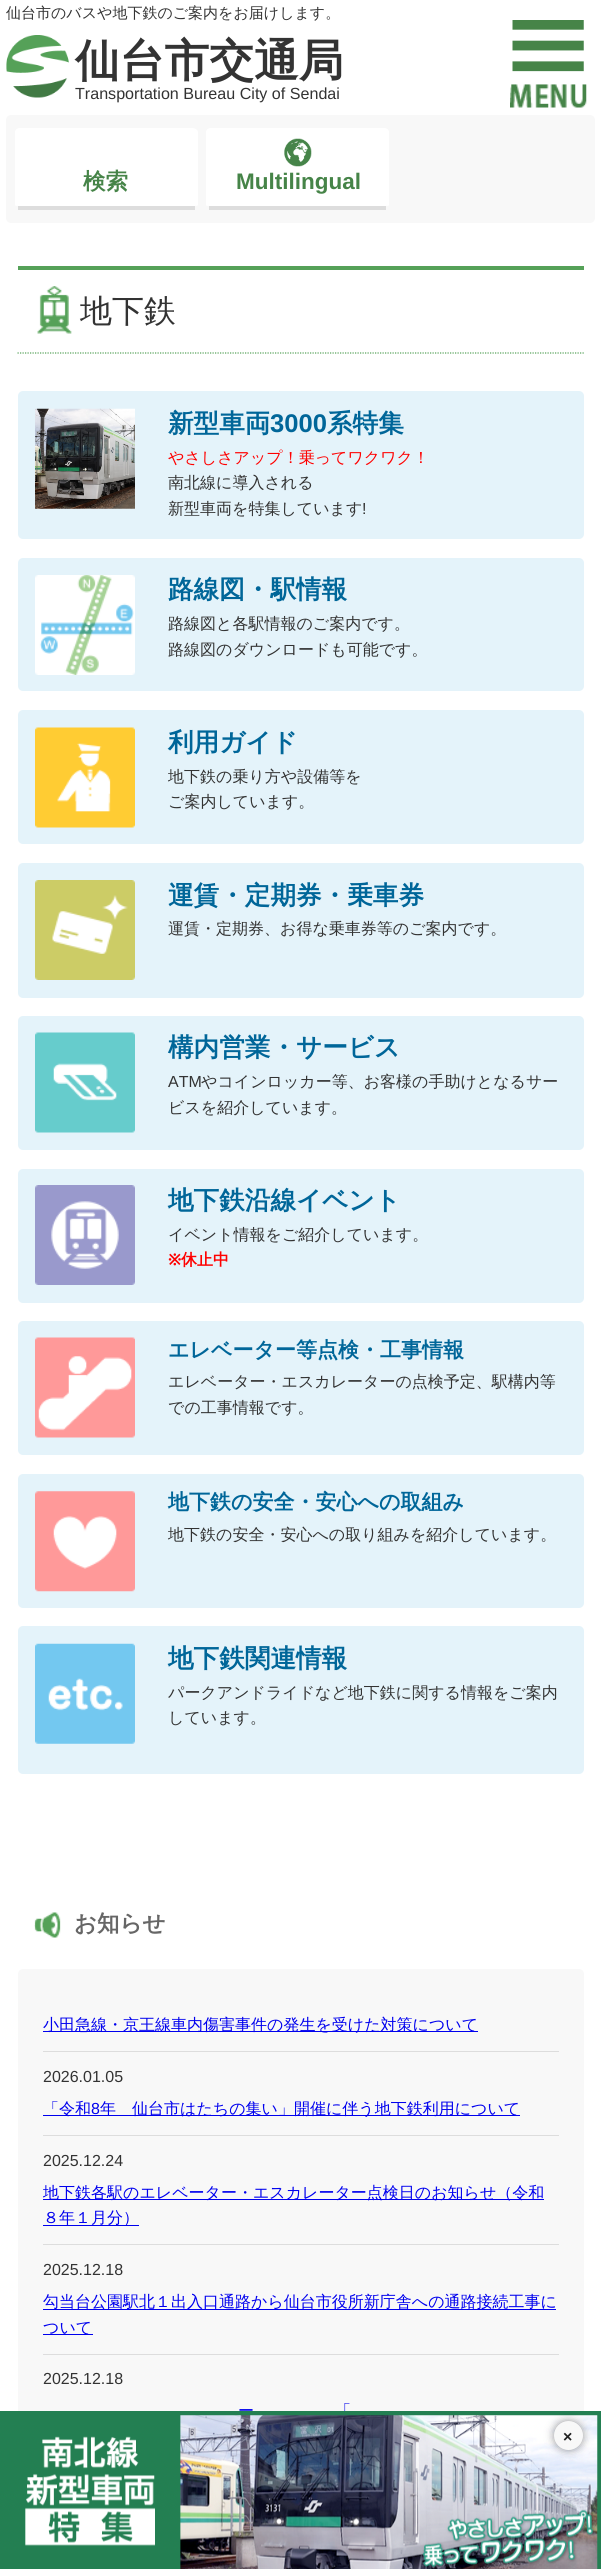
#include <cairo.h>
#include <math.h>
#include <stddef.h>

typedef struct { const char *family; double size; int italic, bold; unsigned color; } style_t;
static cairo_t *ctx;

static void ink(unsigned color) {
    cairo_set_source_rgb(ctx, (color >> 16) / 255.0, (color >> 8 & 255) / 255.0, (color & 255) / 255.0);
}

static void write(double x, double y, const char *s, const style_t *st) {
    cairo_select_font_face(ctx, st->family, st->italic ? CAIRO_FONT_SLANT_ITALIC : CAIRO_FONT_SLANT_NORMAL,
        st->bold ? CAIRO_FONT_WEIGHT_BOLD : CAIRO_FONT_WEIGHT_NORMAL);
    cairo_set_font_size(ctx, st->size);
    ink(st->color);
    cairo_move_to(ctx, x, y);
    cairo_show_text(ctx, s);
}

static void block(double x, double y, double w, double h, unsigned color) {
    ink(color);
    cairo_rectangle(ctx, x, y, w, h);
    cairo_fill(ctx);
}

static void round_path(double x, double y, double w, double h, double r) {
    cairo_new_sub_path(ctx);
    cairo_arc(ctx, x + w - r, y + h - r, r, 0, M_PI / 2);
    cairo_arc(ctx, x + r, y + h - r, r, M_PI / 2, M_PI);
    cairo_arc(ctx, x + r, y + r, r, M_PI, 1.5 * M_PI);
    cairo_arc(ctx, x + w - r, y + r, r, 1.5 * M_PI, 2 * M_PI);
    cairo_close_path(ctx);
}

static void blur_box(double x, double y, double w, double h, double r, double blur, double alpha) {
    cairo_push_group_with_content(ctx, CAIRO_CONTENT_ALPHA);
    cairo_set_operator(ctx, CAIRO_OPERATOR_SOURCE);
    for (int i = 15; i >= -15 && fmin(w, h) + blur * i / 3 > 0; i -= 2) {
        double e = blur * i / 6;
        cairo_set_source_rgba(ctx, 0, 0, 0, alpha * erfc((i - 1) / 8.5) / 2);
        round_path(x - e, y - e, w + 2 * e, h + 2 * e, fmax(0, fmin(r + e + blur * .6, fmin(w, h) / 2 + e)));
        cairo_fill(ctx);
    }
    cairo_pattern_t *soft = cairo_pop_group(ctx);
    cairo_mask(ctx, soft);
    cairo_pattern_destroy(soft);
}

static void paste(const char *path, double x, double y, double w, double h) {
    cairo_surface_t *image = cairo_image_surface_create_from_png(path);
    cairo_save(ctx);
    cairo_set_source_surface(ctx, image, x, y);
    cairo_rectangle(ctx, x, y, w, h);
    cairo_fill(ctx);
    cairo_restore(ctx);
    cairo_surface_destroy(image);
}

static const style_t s1 = {"WenQuanYi Zen Hei Medium", 15, 0, 0, 0x333333};
static const style_t s2 = {"WenQuanYi Zen Hei", 44.75, 0, 1, 0x333333};
static const style_t s3 = {"Liberation Sans", 16.1, 0, 0, 0x333333};
static const style_t s4 = {"WenQuanYi Zen Hei", 22.5, 0, 1, 0x468448};
static const style_t s5 = {"Liberation Sans", 22.5, 0, 1, 0x468448};
static const style_t s6 = {"WenQuanYi Zen Hei Medium", 32, 0, 0, 0x333333};
static const style_t s7 = {"WenQuanYi Zen Hei", 25.6, 0, 1, 0x006699};
static const style_t s8 = {"Liberation Sans", 25.6, 0, 1, 0x006699};
static const style_t s9 = {"WenQuanYi Zen Hei Medium", 16, 0, 0, 0xff0000};
static const style_t s10 = {"WenQuanYi Zen Hei Medium", 16, 0, 0, 0x333333};
static const style_t s11 = {"Liberation Sans", 16, 0, 0, 0x333333};
static const style_t s12 = {"Noto Sans", 16, 0, 1, 0xff0000};
static const style_t s13 = {"WenQuanYi Zen Hei", 16, 0, 1, 0xff0000};
static const style_t s14 = {"WenQuanYi Zen Hei", 21, 0, 1, 0x006699};
static const style_t s15 = {"WenQuanYi Zen Hei", 22.5, 0, 1, 0x666666};
static const style_t s16 = {"WenQuanYi Zen Hei Medium", 16, 0, 0, 0x0000ee};
static const style_t s17 = {"Liberation Sans", 16, 0, 0, 0x0000ee};
static const style_t s18 = {"Liberation Sans", 16, 0, 1, 0x222222};

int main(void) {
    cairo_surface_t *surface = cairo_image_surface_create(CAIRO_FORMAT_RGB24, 601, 2569);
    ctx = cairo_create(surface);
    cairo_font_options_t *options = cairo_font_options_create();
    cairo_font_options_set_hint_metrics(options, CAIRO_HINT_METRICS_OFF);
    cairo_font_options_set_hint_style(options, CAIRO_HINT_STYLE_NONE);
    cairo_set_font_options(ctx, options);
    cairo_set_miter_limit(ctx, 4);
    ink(0xffffff);
    cairo_paint(ctx);
    write(6, 18, "仙台市のバスや地下鉄のご案内をお届けします。", &s1);
    paste("pic1.png", 6, 35, 63, 63);
    write(75, 76, "仙台市交通局", &s2);
    write(75, 99, "Transportation Bureau City of Sendai", &s3);
    ink(0xf8f8f8);
    round_path(6, 115, 589, 108, 5);
    cairo_fill(ctx);
    ink(0xffffff);
    cairo_new_path(ctx);
    cairo_move_to(ctx, 20, 128);
    cairo_line_to(ctx, 192, 128);
    cairo_curve_to(ctx, 195, 128, 198, 130, 198, 132);
    cairo_line_to(ctx, 198, 205);
    cairo_curve_to(ctx, 198, 206, 195, 206, 192, 206);
    cairo_line_to(ctx, 20, 206);
    cairo_curve_to(ctx, 17, 206, 15, 206, 15, 205);
    cairo_line_to(ctx, 15, 132);
    cairo_curve_to(ctx, 15, 130, 17, 128, 20, 128);
    cairo_close_path(ctx);
    cairo_fill(ctx);
    block(18, 206, 177, 4, 0xdddddd);
    write(83, 189, "検索", &s4);
    ink(0xffffff);
    cairo_new_path(ctx);
    cairo_move_to(ctx, 211, 128);
    cairo_line_to(ctx, 384, 128);
    cairo_curve_to(ctx, 387, 128, 389, 130, 389, 132);
    cairo_line_to(ctx, 389, 205);
    cairo_curve_to(ctx, 389, 206, 387, 206, 384, 206);
    cairo_line_to(ctx, 211, 206);
    cairo_curve_to(ctx, 208, 206, 206, 206, 206, 205);
    cairo_line_to(ctx, 206, 132);
    cairo_curve_to(ctx, 206, 130, 208, 128, 211, 128);
    cairo_close_path(ctx);
    cairo_fill(ctx);
    block(209, 206, 177, 4, 0xdddddd);
    paste("pic2.png", 284, 138, 28, 29);
    write(236, 189, "Multilingual", &s5);
    paste("pic3.png", 510, 20, 77, 88);
    paste("pic4.png", 37, 286, 35, 48);
    block(18, 266, 566, 4, 0x55a158);
    cairo_new_path(ctx);
    cairo_move_to(ctx, 17.5, 353);
    cairo_line_to(ctx, 584, 353);
    cairo_set_line_width(ctx, 1.2);
    cairo_set_dash(ctx, (double[]){1.25, 1.25}, 2, 0);
    cairo_stroke(ctx);
    write(80, 322, "地下鉄", &s6);
    ink(0xe4f3fa);
    round_path(18, 391, 566, 148, 5);
    cairo_fill(ctx);
    paste("pic5.png", 35, 408, 100, 101);
    write(168, 432, "新型車両", &s7);
    write(270, 432, "3000", &s8);
    write(327, 432, "系特集", &s7);
    write(168, 463, "やさしさアップ！乗ってワクワク！", &s9);
    write(168, 488, "南北線に導入される", &s10);
    write(168, 514, "新型車両を特集しています", &s10);
    write(362, 514, "!", &s11);
    ink(0xe4f3fa);
    round_path(18, 558, 566, 133, 5);
    cairo_fill(ctx);
    paste("pic6.png", 35, 575, 100, 100);
    write(168, 598, "路線図・駅情報", &s7);
    write(168, 629, "路線図と各駅情報のご案内です。", &s10);
    write(168, 655, "路線図のダウンロードも可能です。", &s10);
    ink(0xe4f3fa);
    round_path(18, 710, 566, 134, 5);
    cairo_fill(ctx);
    paste("pic7.png", 35, 727, 100, 101);
    write(168, 751, "利用ガイド", &s7);
    write(168, 782, "地下鉄の乗り方や設備等を", &s10);
    write(168, 807, "ご案内しています。", &s10);
    ink(0xe4f3fa);
    round_path(18, 863, 566, 135, 5);
    cairo_fill(ctx);
    paste("pic8.png", 35, 880, 100, 100);
    write(168, 904, "運賃・定期券・乗車券", &s7);
    write(168, 934, "運賃・定期券、お得な乗車券等のご案内です。", &s10);
    ink(0xe4f3fa);
    round_path(18, 1016, 566, 134, 5);
    cairo_fill(ctx);
    paste("pic9.png", 35, 1032, 100, 101);
    write(168, 1056, "構内営業・サービス", &s7);
    write(168, 1087, "ATM", &s11);
    write(201, 1087, "やコインロッカー等、お客様の手助けとなるサー", &s10);
    write(168, 1113, "ビスを紹介しています。", &s10);
    ink(0xe4f3fa);
    round_path(18, 1169, 566, 134, 5);
    cairo_fill(ctx);
    paste("pic10.png", 35, 1185, 100, 100);
    write(168, 1209, "地下鉄沿線イベント", &s7);
    write(168, 1240, "イベント情報をご紹介しています。", &s10);
    write(168, 1265, "※", &s12);
    write(181, 1265, "休止中", &s13);
    ink(0xe4f3fa);
    round_path(18, 1321, 566, 134, 5);
    cairo_fill(ctx);
    paste("pic11.png", 35, 1337, 100, 101);
    write(168, 1357, "エレベーター等点検・工事情報", &s14);
    write(168, 1387, "エレベーター・エスカレーターの点検予定、駅構内等", &s10);
    write(168, 1413, "での工事情報です。", &s10);
    ink(0xe4f3fa);
    round_path(18, 1474, 566, 134, 5);
    cairo_fill(ctx);
    paste("pic12.png", 35, 1491, 100, 101);
    write(168, 1509, "地下鉄の安全・安心への取組み", &s14);
    write(168, 1540, "地下鉄の安全・安心への取り組みを紹介しています。", &s10);
    ink(0xe4f3fa);
    round_path(18, 1626, 566, 148, 5);
    cairo_fill(ctx);
    paste("pic13.png", 35, 1643, 100, 101);
    write(168, 1667, "地下鉄関連情報", &s7);
    write(168, 1698, "パークアンドライドなど地下鉄に関する情報をご案内", &s10);
    write(168, 1723, "しています。", &s10);
    paste("pic14.png", 34, 1912, 27, 26);
    write(74, 1931, "お知らせ", &s15);
    ink(0xf8f8f8);
    round_path(18, 1969, 566, 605, 5);
    cairo_fill(ctx);
    block(43, 2051, 516, 1, 0xdddddd);
    block(43, 2031, 435, 1, 0x0000ee);
    write(43, 2030, "小田急線・京王線車内傷害事件の発生を受けた対策について", &s16);
    write(43, 2082, "2026.01.05", &s11);
    block(43, 2135, 516, 1, 0xdddddd);
    block(43, 2115, 477, 1, 0x0000ee);
    write(43, 2114, "「令和", &s16);
    write(91, 2114, "8", &s17);
    write(100, 2114, "年　仙台市はたちの集い」開催に伴う地下鉄利用について", &s16);
    write(43, 2166, "2025.12.24", &s11);
    block(43, 2244, 516, 1, 0xdddddd);
    block(43, 2199, 501, 1, 0x0000ee);
    write(43, 2198, "地下鉄各駅のエレベーター・エスカレーター点検日のお知らせ（令和", &s16);
    block(43, 2225, 96, 1, 0x0000ee);
    write(43, 2223, "８年１月分）", &s16);
    write(43, 2275, "2025.12.18", &s11);
    block(43, 2354, 516, 1, 0xdddddd);
    block(43, 2309, 513, 1, 0x0000ee);
    write(43, 2307, "勾当台公園駅北１出入口通路から仙台市役所新庁舎への通路接続工事に", &s16);
    block(43, 2334, 50, 1, 0x0000ee);
    write(43, 2333, "ついて", &s16);
    write(43, 2384, "2025.12.18", &s11);
    write(238, 2416, "ー", &s16);
    write(335, 2416, "「", &s16);
    paste("pic15.png", 0, 2411, 601, 158);
    ink(0x000000);
    blur_box(554, 2421, 29, 29, 14.5, 4.5, 0.4);
    ink(0xf8f8f8);
    cairo_arc(ctx, 568.5, 2435.5, 14.5, 0, 2 * M_PI);
    cairo_fill(ctx);
    write(563, 2442, "×", &s18);
    cairo_surface_write_to_png(surface, "screenshot.png");
    cairo_font_options_destroy(options);
    cairo_destroy(ctx);
    cairo_surface_destroy(surface);
    return 0;
}
